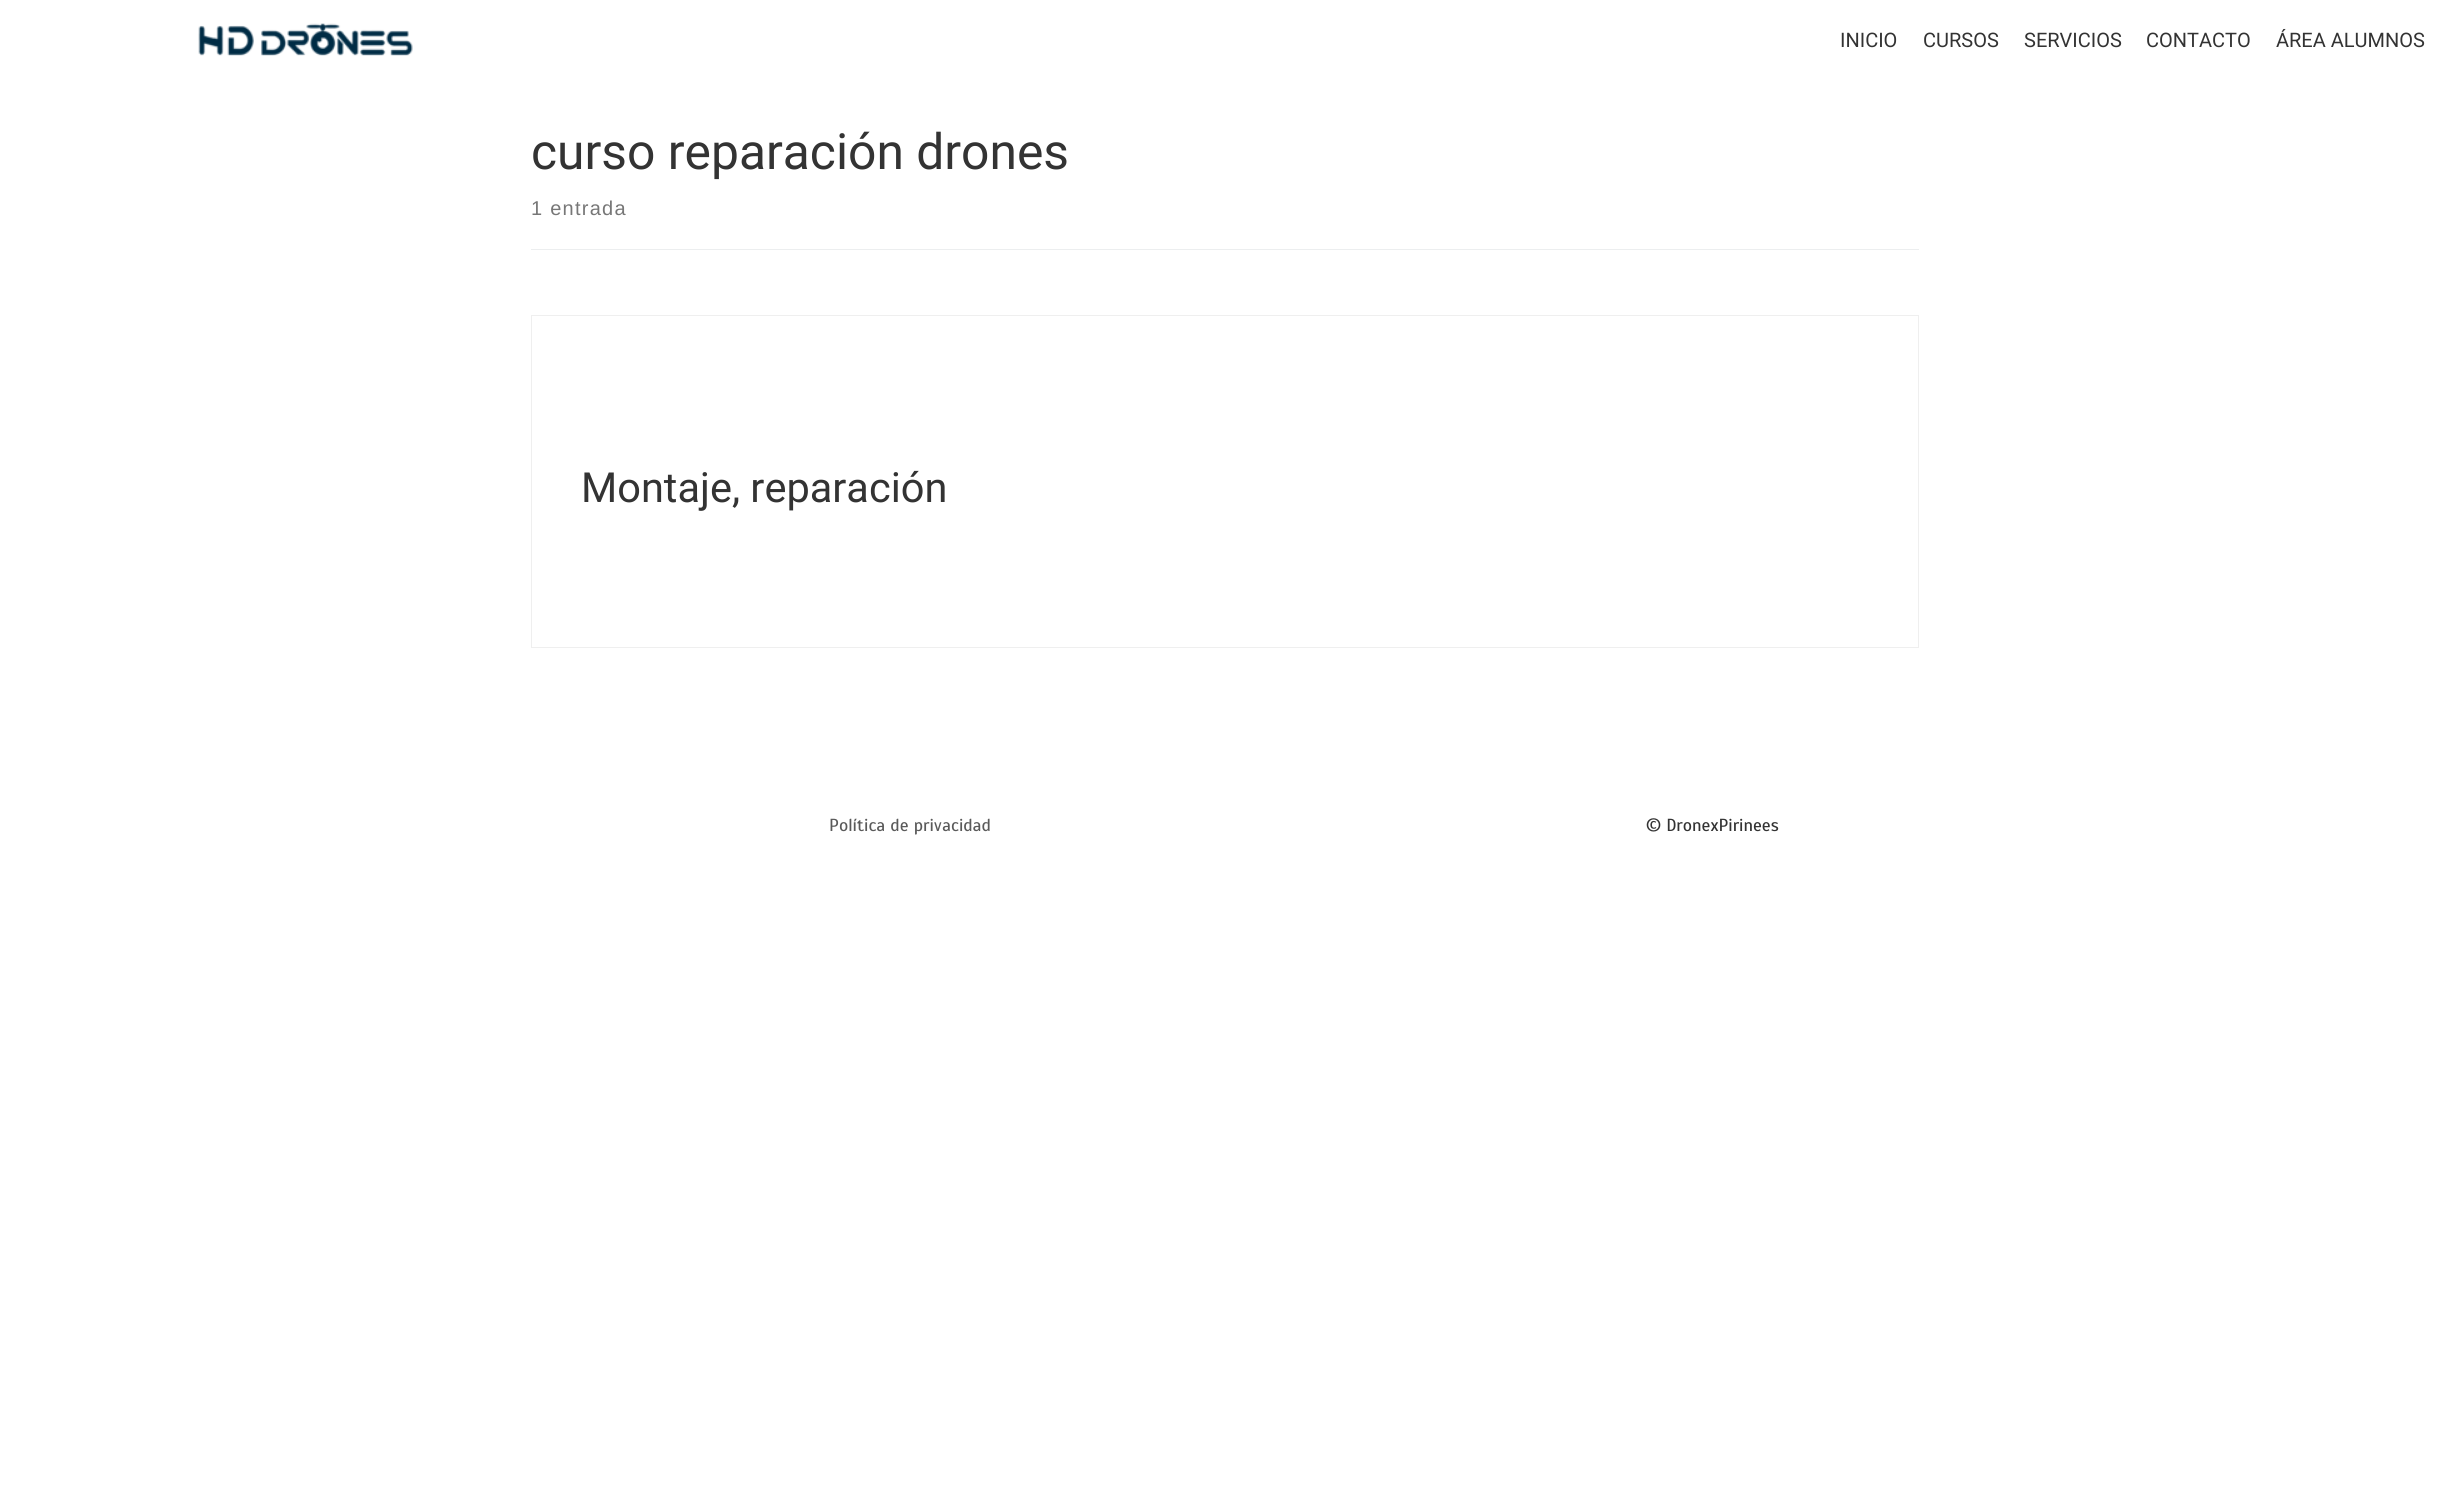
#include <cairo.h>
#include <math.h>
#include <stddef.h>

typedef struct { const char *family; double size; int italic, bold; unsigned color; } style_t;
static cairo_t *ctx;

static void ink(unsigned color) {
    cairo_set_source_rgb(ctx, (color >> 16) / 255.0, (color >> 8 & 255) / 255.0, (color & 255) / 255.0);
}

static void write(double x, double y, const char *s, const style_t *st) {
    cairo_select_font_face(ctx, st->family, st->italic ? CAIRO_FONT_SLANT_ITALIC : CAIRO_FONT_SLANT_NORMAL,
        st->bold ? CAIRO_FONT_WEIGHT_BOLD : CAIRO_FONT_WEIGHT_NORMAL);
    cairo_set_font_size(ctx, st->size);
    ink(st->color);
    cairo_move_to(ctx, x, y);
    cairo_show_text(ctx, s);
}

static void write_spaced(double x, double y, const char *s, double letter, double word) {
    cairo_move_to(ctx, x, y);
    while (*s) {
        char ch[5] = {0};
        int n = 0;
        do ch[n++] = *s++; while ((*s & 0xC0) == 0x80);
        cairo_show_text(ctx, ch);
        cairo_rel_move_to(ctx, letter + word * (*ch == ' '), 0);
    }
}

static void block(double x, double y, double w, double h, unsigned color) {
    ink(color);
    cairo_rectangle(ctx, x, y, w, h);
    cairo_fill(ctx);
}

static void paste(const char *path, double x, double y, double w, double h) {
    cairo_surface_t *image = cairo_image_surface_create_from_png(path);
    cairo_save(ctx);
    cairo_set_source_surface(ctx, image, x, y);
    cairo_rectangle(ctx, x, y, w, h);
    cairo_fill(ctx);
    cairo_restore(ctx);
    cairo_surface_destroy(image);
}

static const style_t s1 = {"Roboto", 20, 0, 0, 0x333333};
static const style_t s2 = {"Roboto", 49.75, 0, 0, 0x333333};
static const style_t s3 = {"Roboto", 41.5, 0, 0, 0x333333};
static const style_t s4 = {"Scada", 17.5, 0, 0, 0x5a5a5a};
static const style_t s5 = {"Scada", 17.5, 0, 0, 0x333333};

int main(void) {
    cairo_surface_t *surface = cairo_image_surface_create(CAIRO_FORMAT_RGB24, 2450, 1489);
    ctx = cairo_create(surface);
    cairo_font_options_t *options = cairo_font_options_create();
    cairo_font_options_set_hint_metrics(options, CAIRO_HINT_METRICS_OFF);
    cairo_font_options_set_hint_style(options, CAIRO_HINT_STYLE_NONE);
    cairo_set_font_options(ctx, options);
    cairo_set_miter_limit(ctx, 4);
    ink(0xffffff);
    cairo_paint(ctx);
    paste("pic1.png", 198, 23, 215, 33);
    write(1840, 47, "INICIO", &s1);
    write(1923, 47, "CURSOS", &s1);
    write(2024, 47, "SERVICIOS", &s1);
    write(2146, 47, "CONTACTO", &s1);
    write(2276, 47, "ÁREA ALUMNOS", &s1);
    write(531, 169, "curso reparación drones", &s2);
    cairo_select_font_face(ctx, "Liberation Sans", CAIRO_FONT_SLANT_NORMAL, CAIRO_FONT_WEIGHT_NORMAL);
    cairo_set_font_size(ctx, 20);
    ink(0x777777);
    write_spaced(531, 215, "1 entrada", 1.25, 0);
    block(531, 249, 1388, 1, 0xeceeef);
    cairo_rectangle(ctx, 531.5, 315.5, 1387, 332);
    ink(0xefefef);
    cairo_set_line_width(ctx, 1);
    cairo_stroke(ctx);
    write(581, 502, "Montaje, reparación", &s3);
    write(829, 831, "Política de privacidad", &s4);
    write(1646, 831, "© DronexPirinees", &s5);
    cairo_surface_write_to_png(surface, "screenshot.png");
    cairo_font_options_destroy(options);
    cairo_destroy(ctx);
    cairo_surface_destroy(surface);
    return 0;
}
